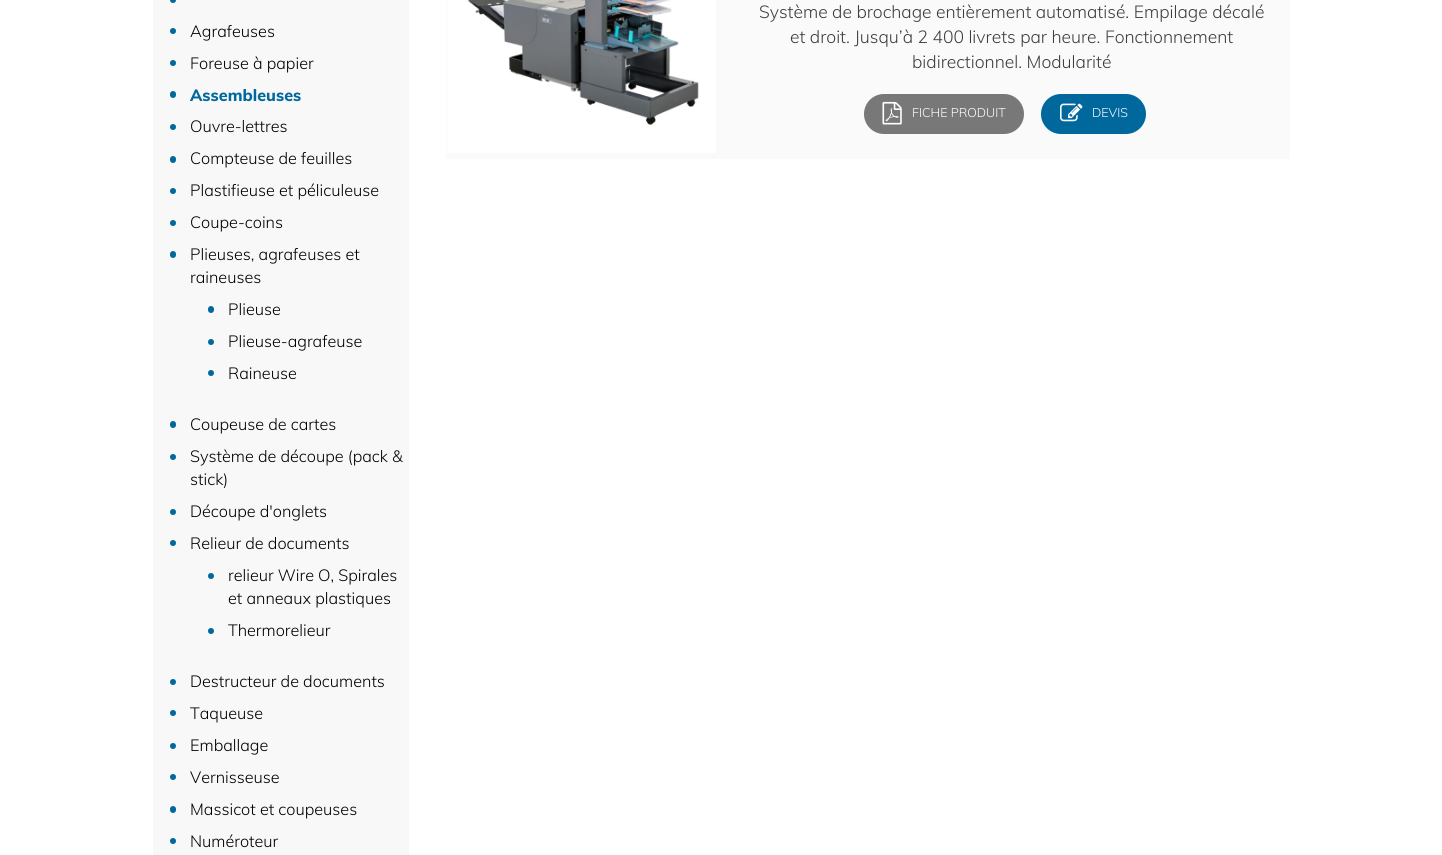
#include <cairo.h>
#include <math.h>
#include <stddef.h>

typedef struct { const char *family; double size; int italic, bold; unsigned color; } style_t;
static cairo_t *ctx;

static void ink(unsigned color) {
    cairo_set_source_rgb(ctx, (color >> 16) / 255.0, (color >> 8 & 255) / 255.0, (color & 255) / 255.0);
}

static void write(double x, double y, const char *s, const style_t *st) {
    cairo_select_font_face(ctx, st->family, st->italic ? CAIRO_FONT_SLANT_ITALIC : CAIRO_FONT_SLANT_NORMAL,
        st->bold ? CAIRO_FONT_WEIGHT_BOLD : CAIRO_FONT_WEIGHT_NORMAL);
    cairo_set_font_size(ctx, st->size);
    ink(st->color);
    cairo_move_to(ctx, x, y);
    cairo_show_text(ctx, s);
}

static void block(double x, double y, double w, double h, unsigned color) {
    ink(color);
    cairo_rectangle(ctx, x, y, w, h);
    cairo_fill(ctx);
}

static void round_path(double x, double y, double w, double h, double r) {
    cairo_new_sub_path(ctx);
    cairo_arc(ctx, x + w - r, y + h - r, r, 0, M_PI / 2);
    cairo_arc(ctx, x + r, y + h - r, r, M_PI / 2, M_PI);
    cairo_arc(ctx, x + r, y + r, r, M_PI, 1.5 * M_PI);
    cairo_arc(ctx, x + w - r, y + r, r, 1.5 * M_PI, 2 * M_PI);
    cairo_close_path(ctx);
}

static void paste(const char *path, double x, double y, double w, double h) {
    cairo_surface_t *image = cairo_image_surface_create_from_png(path);
    cairo_save(ctx);
    cairo_set_source_surface(ctx, image, x, y);
    cairo_rectangle(ctx, x, y, w, h);
    cairo_fill(ctx);
    cairo_restore(ctx);
    cairo_surface_destroy(image);
}

static const style_t s1 = {"Muli Light", 16.25, 0, 0, 0x000000};
static const style_t s2 = {"Muli ExtraBold", 16.25, 0, 0, 0x00689d};
static const style_t s3 = {"Muli Light", 17.5, 0, 0, 0x3d3d3d};
static const style_t s4 = {"Muli Light", 12.5, 0, 0, 0xffffff};

int main(void) {
    cairo_surface_t *surface = cairo_image_surface_create(CAIRO_FORMAT_RGB24, 1442, 855);
    ctx = cairo_create(surface);
    cairo_font_options_t *options = cairo_font_options_create();
    cairo_font_options_set_hint_metrics(options, CAIRO_HINT_METRICS_OFF);
    cairo_font_options_set_hint_style(options, CAIRO_HINT_STYLE_NONE);
    cairo_set_font_options(ctx, options);
    cairo_set_miter_limit(ctx, 4);
    ink(0xffffff);
    cairo_paint(ctx);
    block(153, 0, 256, 855, 0xf8f8f8);
    ink(0x00689d);
    cairo_arc(ctx, 173, 0, 3, 0, 2 * M_PI);
    cairo_fill(ctx);
    cairo_arc(ctx, 173, 31, 3, 0, 2 * M_PI);
    cairo_fill(ctx);
    write(190, 37, "Agrafeuses", &s1);
    ink(0x00689d);
    cairo_new_path(ctx);
    cairo_arc(ctx, 173, 63, 3, 0, 2 * M_PI);
    cairo_fill(ctx);
    write(190, 69, "Foreuse à papier", &s1);
    ink(0x00689d);
    round_path(170, 91, 6, 7, 3);
    cairo_fill(ctx);
    write(190, 101, "Assembleuses", &s2);
    cairo_new_path(ctx);
    cairo_arc(ctx, 173, 127, 3, 0, 2 * M_PI);
    cairo_fill(ctx);
    write(190, 132, "Ouvre-lettres", &s1);
    ink(0x00689d);
    round_path(170, 156, 6, 7, 3);
    cairo_fill(ctx);
    write(190, 164, "Compteuse de feuilles", &s1);
    ink(0x00689d);
    cairo_new_path(ctx);
    cairo_arc(ctx, 173, 191, 3, 0, 2 * M_PI);
    cairo_fill(ctx);
    write(190, 196, "Plastifieuse et péliculeuse", &s1);
    ink(0x00689d);
    cairo_new_path(ctx);
    cairo_arc(ctx, 173, 223, 3, 0, 2 * M_PI);
    cairo_fill(ctx);
    write(190, 228, "Coupe-coins", &s1);
    ink(0x00689d);
    round_path(170, 251, 6, 7, 3);
    cairo_fill(ctx);
    write(190, 260, "Plieuses, agrafeuses et", &s1);
    write(190, 283, "raineuses", &s1);
    ink(0x00689d);
    round_path(208, 306, 6, 7, 3);
    cairo_fill(ctx);
    write(228, 315, "Plieuse", &s1);
    ink(0x00689d);
    cairo_new_path(ctx);
    cairo_arc(ctx, 211, 342, 3, 0, 2 * M_PI);
    cairo_fill(ctx);
    write(228, 347, "Plieuse-agrafeuse", &s1);
    ink(0x00689d);
    cairo_new_path(ctx);
    cairo_arc(ctx, 211, 373, 3, 0, 2 * M_PI);
    cairo_fill(ctx);
    write(228, 379, "Raineuse", &s1);
    ink(0x00689d);
    round_path(170, 421, 6, 7, 3);
    cairo_fill(ctx);
    write(190, 430, "Coupeuse de cartes", &s1);
    ink(0x00689d);
    cairo_new_path(ctx);
    cairo_arc(ctx, 173, 457, 3, 0, 2 * M_PI);
    cairo_fill(ctx);
    write(190, 462, "Système de découpe (pack &", &s1);
    write(190, 485, "stick)", &s1);
    ink(0x00689d);
    cairo_new_path(ctx);
    cairo_arc(ctx, 173, 512, 3, 0, 2 * M_PI);
    cairo_fill(ctx);
    write(190, 517, "Découpe d'onglets", &s1);
    ink(0x00689d);
    cairo_new_path(ctx);
    cairo_arc(ctx, 173, 543, 3, 0, 2 * M_PI);
    cairo_fill(ctx);
    write(190, 549, "Relieur de documents", &s1);
    ink(0x00689d);
    cairo_new_path(ctx);
    cairo_arc(ctx, 211, 576, 3, 0, 2 * M_PI);
    cairo_fill(ctx);
    write(228, 581, "relieur Wire O, Spirales", &s1);
    write(228, 604, "et anneaux plastiques", &s1);
    ink(0x00689d);
    cairo_new_path(ctx);
    cairo_arc(ctx, 211, 631, 3, 0, 2 * M_PI);
    cairo_fill(ctx);
    write(228, 636, "Thermorelieur", &s1);
    ink(0x00689d);
    cairo_new_path(ctx);
    cairo_arc(ctx, 173, 682, 3, 0, 2 * M_PI);
    cairo_fill(ctx);
    write(190, 687, "Destructeur de documents", &s1);
    ink(0x00689d);
    cairo_new_path(ctx);
    cairo_arc(ctx, 173, 713, 3, 0, 2 * M_PI);
    cairo_fill(ctx);
    write(190, 719, "Taqueuse", &s1);
    ink(0x00689d);
    cairo_new_path(ctx);
    cairo_arc(ctx, 173, 746, 3, 0, 2 * M_PI);
    cairo_fill(ctx);
    write(190, 751, "Emballage", &s1);
    ink(0x00689d);
    cairo_new_path(ctx);
    cairo_arc(ctx, 173, 777, 3, 0, 2 * M_PI);
    cairo_fill(ctx);
    write(190, 783, "Vernisseuse", &s1);
    ink(0x00689d);
    round_path(170, 806, 6, 7, 3);
    cairo_fill(ctx);
    write(190, 815, "Massicot et coupeuses", &s1);
    ink(0x00689d);
    cairo_new_path(ctx);
    cairo_arc(ctx, 173, 841, 3, 0, 2 * M_PI);
    cairo_fill(ctx);
    write(190, 847, "Numéroteur", &s1);
    block(446, 0, 844, 159, 0xfafafa);
    paste("pic1.png", 447, 0, 269, 153);
    write(759, 18, "Système de brochage entièrement automatisé. Empilage décalé", &s3);
    write(790, 43, "et droit. Jusqu’à 2 400 livrets par heure. Fonctionnement", &s3);
    write(912, 68, "bidirectionnel. Modularité", &s3);
    ink(0x787878);
    round_path(864, 94, 160, 40, 20);
    cairo_fill(ctx);
    paste("pic2.png", 882, 101, 20, 24);
    write(912, 117, "FICHE PRODUIT", &s4);
    ink(0x00689d);
    round_path(1041, 94, 105, 40, 20);
    cairo_fill(ctx);
    paste("pic3.png", 1060, 103, 23, 19);
    write(1092, 117, "DEVIS", &s4);
    cairo_surface_write_to_png(surface, "screenshot.png");
    cairo_font_options_destroy(options);
    cairo_destroy(ctx);
    cairo_surface_destroy(surface);
    return 0;
}
